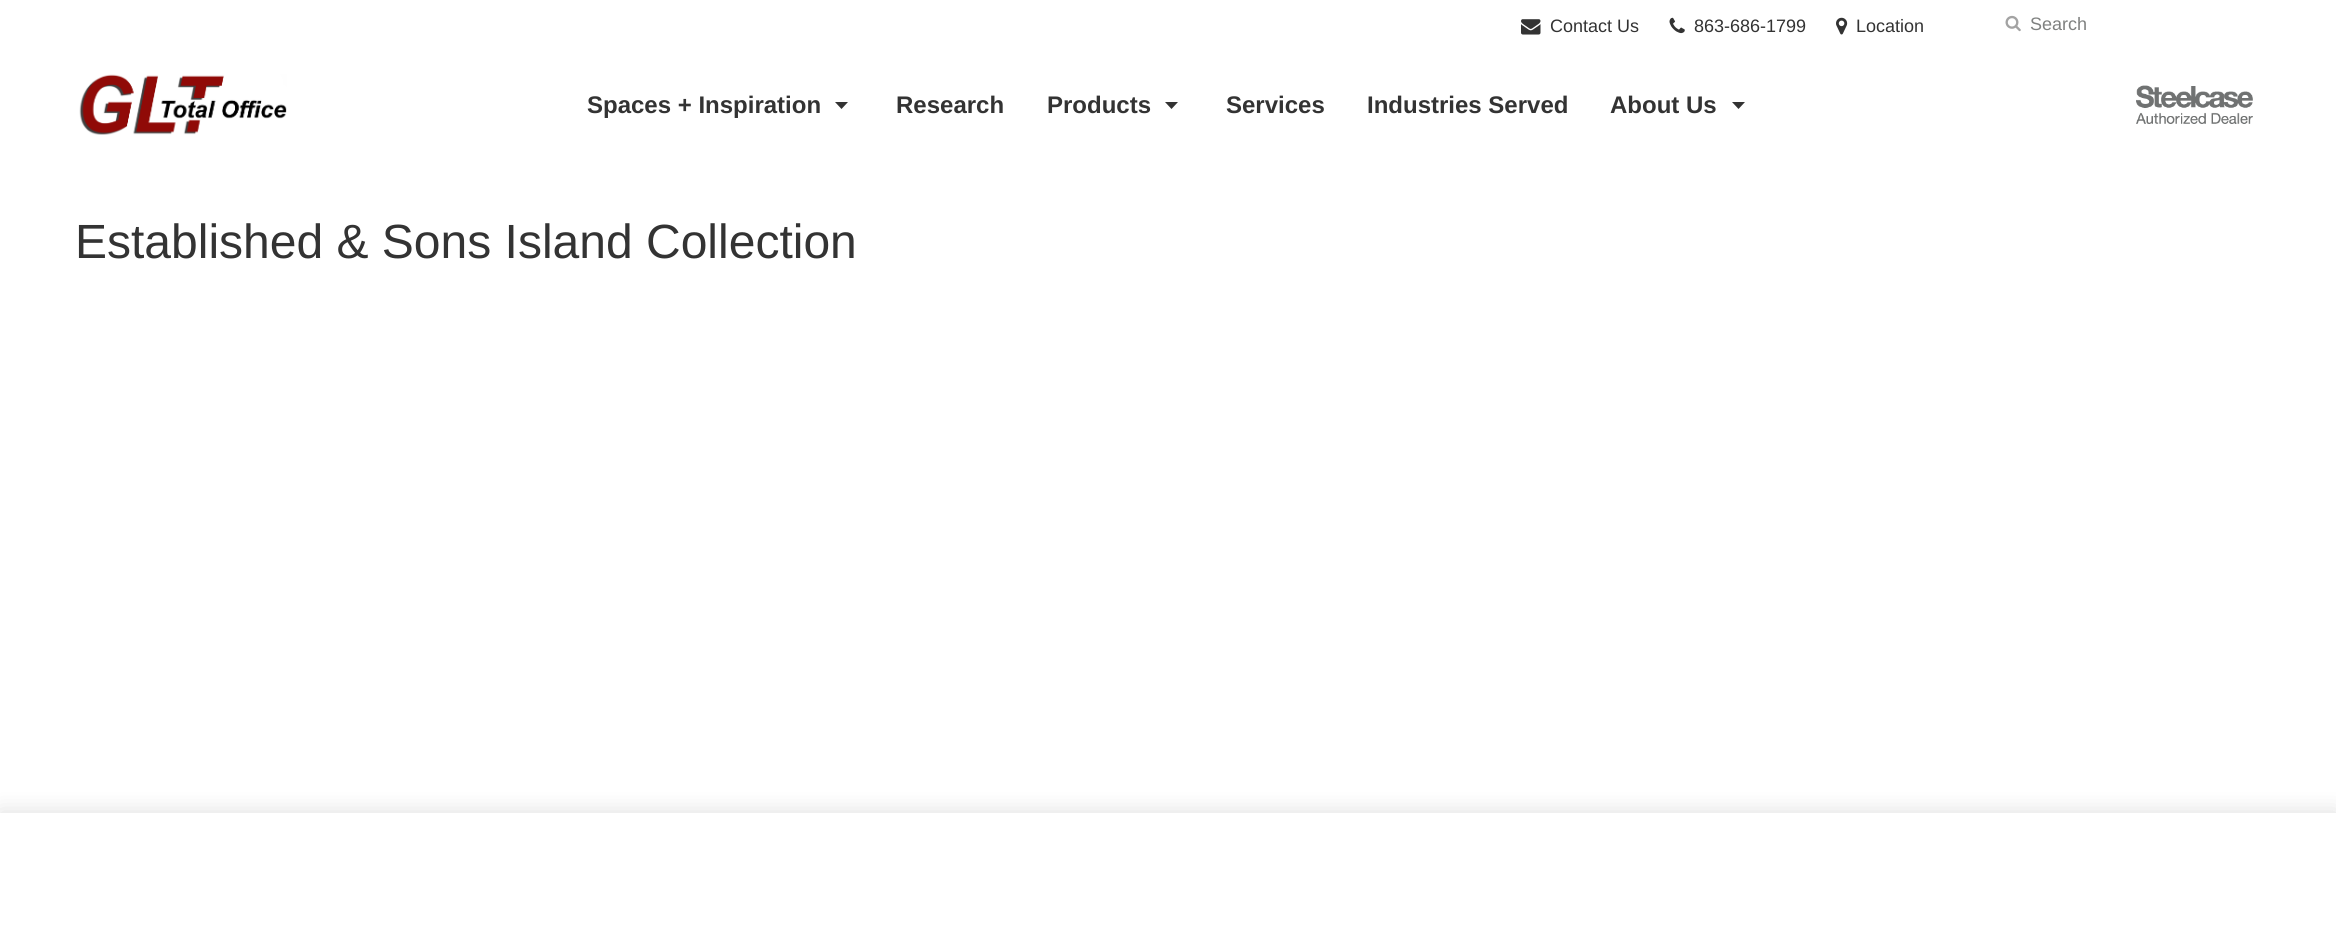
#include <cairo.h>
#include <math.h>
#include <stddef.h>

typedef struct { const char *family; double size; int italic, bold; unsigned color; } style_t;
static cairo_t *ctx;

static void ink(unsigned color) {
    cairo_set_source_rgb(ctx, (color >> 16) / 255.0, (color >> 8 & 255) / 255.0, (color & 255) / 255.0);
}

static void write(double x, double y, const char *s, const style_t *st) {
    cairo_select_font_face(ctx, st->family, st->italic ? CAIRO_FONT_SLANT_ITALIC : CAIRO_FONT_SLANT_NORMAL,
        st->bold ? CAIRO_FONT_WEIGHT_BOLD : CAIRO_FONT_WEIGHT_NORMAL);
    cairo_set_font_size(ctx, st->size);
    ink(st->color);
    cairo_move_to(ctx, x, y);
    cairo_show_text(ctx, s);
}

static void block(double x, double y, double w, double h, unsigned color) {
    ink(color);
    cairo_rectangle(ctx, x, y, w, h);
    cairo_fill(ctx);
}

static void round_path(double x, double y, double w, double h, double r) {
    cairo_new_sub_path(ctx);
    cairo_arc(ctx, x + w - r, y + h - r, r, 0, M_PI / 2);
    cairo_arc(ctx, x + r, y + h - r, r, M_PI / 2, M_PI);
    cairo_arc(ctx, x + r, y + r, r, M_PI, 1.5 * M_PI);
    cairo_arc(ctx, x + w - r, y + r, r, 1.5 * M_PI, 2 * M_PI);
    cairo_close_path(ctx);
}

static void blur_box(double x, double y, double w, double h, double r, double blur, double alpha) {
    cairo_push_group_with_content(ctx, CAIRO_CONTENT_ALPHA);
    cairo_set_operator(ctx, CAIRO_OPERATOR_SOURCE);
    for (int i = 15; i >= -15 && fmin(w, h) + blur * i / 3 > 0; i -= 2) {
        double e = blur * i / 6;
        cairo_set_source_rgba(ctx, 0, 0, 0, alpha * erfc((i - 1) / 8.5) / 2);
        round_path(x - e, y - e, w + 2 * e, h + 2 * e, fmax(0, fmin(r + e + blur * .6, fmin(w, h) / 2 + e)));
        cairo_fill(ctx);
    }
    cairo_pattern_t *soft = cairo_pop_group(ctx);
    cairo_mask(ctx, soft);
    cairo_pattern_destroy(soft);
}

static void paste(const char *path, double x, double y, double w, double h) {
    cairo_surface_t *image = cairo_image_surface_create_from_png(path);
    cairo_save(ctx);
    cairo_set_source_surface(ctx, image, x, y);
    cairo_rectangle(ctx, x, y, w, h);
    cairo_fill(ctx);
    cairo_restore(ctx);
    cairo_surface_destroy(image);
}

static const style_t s1 = {"Liberation Sans", 18, 0, 0, 0x333333};
static const style_t s2 = {"Liberation Sans", 18, 0, 0, 0x7f8180};
static const style_t s3 = {"Liberation Sans", 24, 0, 1, 0x333333};
static const style_t s4 = {"Liberation Sans", 48, 0, 0, 0x333333};

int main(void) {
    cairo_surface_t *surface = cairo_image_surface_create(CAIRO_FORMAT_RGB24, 2336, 932);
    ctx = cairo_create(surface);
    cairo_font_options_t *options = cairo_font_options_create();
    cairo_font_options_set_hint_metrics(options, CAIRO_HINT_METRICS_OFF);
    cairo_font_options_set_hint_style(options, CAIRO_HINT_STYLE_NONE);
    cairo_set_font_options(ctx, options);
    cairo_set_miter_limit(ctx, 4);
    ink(0xffffff);
    cairo_paint(ctx);
    paste("pic1.png", 1521, 19, 20, 16);
    write(1550, 32, "Contact Us", &s1);
    paste("pic2.png", 1669, 17, 16, 17);
    write(1694, 32, "863-686-1799", &s1);
    paste("pic3.png", 1836, 17, 12, 18);
    write(1856, 32, "Location", &s1);
    paste("pic4.png", 2005, 15, 16, 17);
    write(2030, 30, "Search", &s2);
    paste("pic5.png", 79, 74, 208, 61);
    write(587, 113, "Spaces + Inspiration", &s3);
    cairo_new_path(ctx);
    cairo_move_to(ctx, 835, 102);
    cairo_line_to(ctx, 841.5, 109);
    cairo_line_to(ctx, 848, 102);
    cairo_close_path(ctx);
    cairo_fill(ctx);
    write(896, 113, "Research", &s3);
    write(1047, 113, "Products", &s3);
    cairo_new_path(ctx);
    cairo_move_to(ctx, 1165, 102);
    cairo_line_to(ctx, 1171.5, 109);
    cairo_line_to(ctx, 1178, 102);
    cairo_close_path(ctx);
    cairo_fill(ctx);
    write(1226, 113, "Services", &s3);
    write(1367, 113, "Industries Served", &s3);
    write(1610, 113, "About Us", &s3);
    cairo_new_path(ctx);
    cairo_move_to(ctx, 1732, 102);
    cairo_line_to(ctx, 1738.5, 109);
    cairo_line_to(ctx, 1745, 102);
    cairo_close_path(ctx);
    cairo_fill(ctx);
    paste("pic6.png", 2136, 85, 117, 39);
    write(75, 258, "Established & Sons Island Collection", &s4);
    ink(0x000000);
    blur_box(0, 812, 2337, 120, 0, 11, 0.13);
    block(0, 813, 2336, 119, 0xffffff);
    cairo_surface_write_to_png(surface, "screenshot.png");
    cairo_font_options_destroy(options);
    cairo_destroy(ctx);
    cairo_surface_destroy(surface);
    return 0;
}
